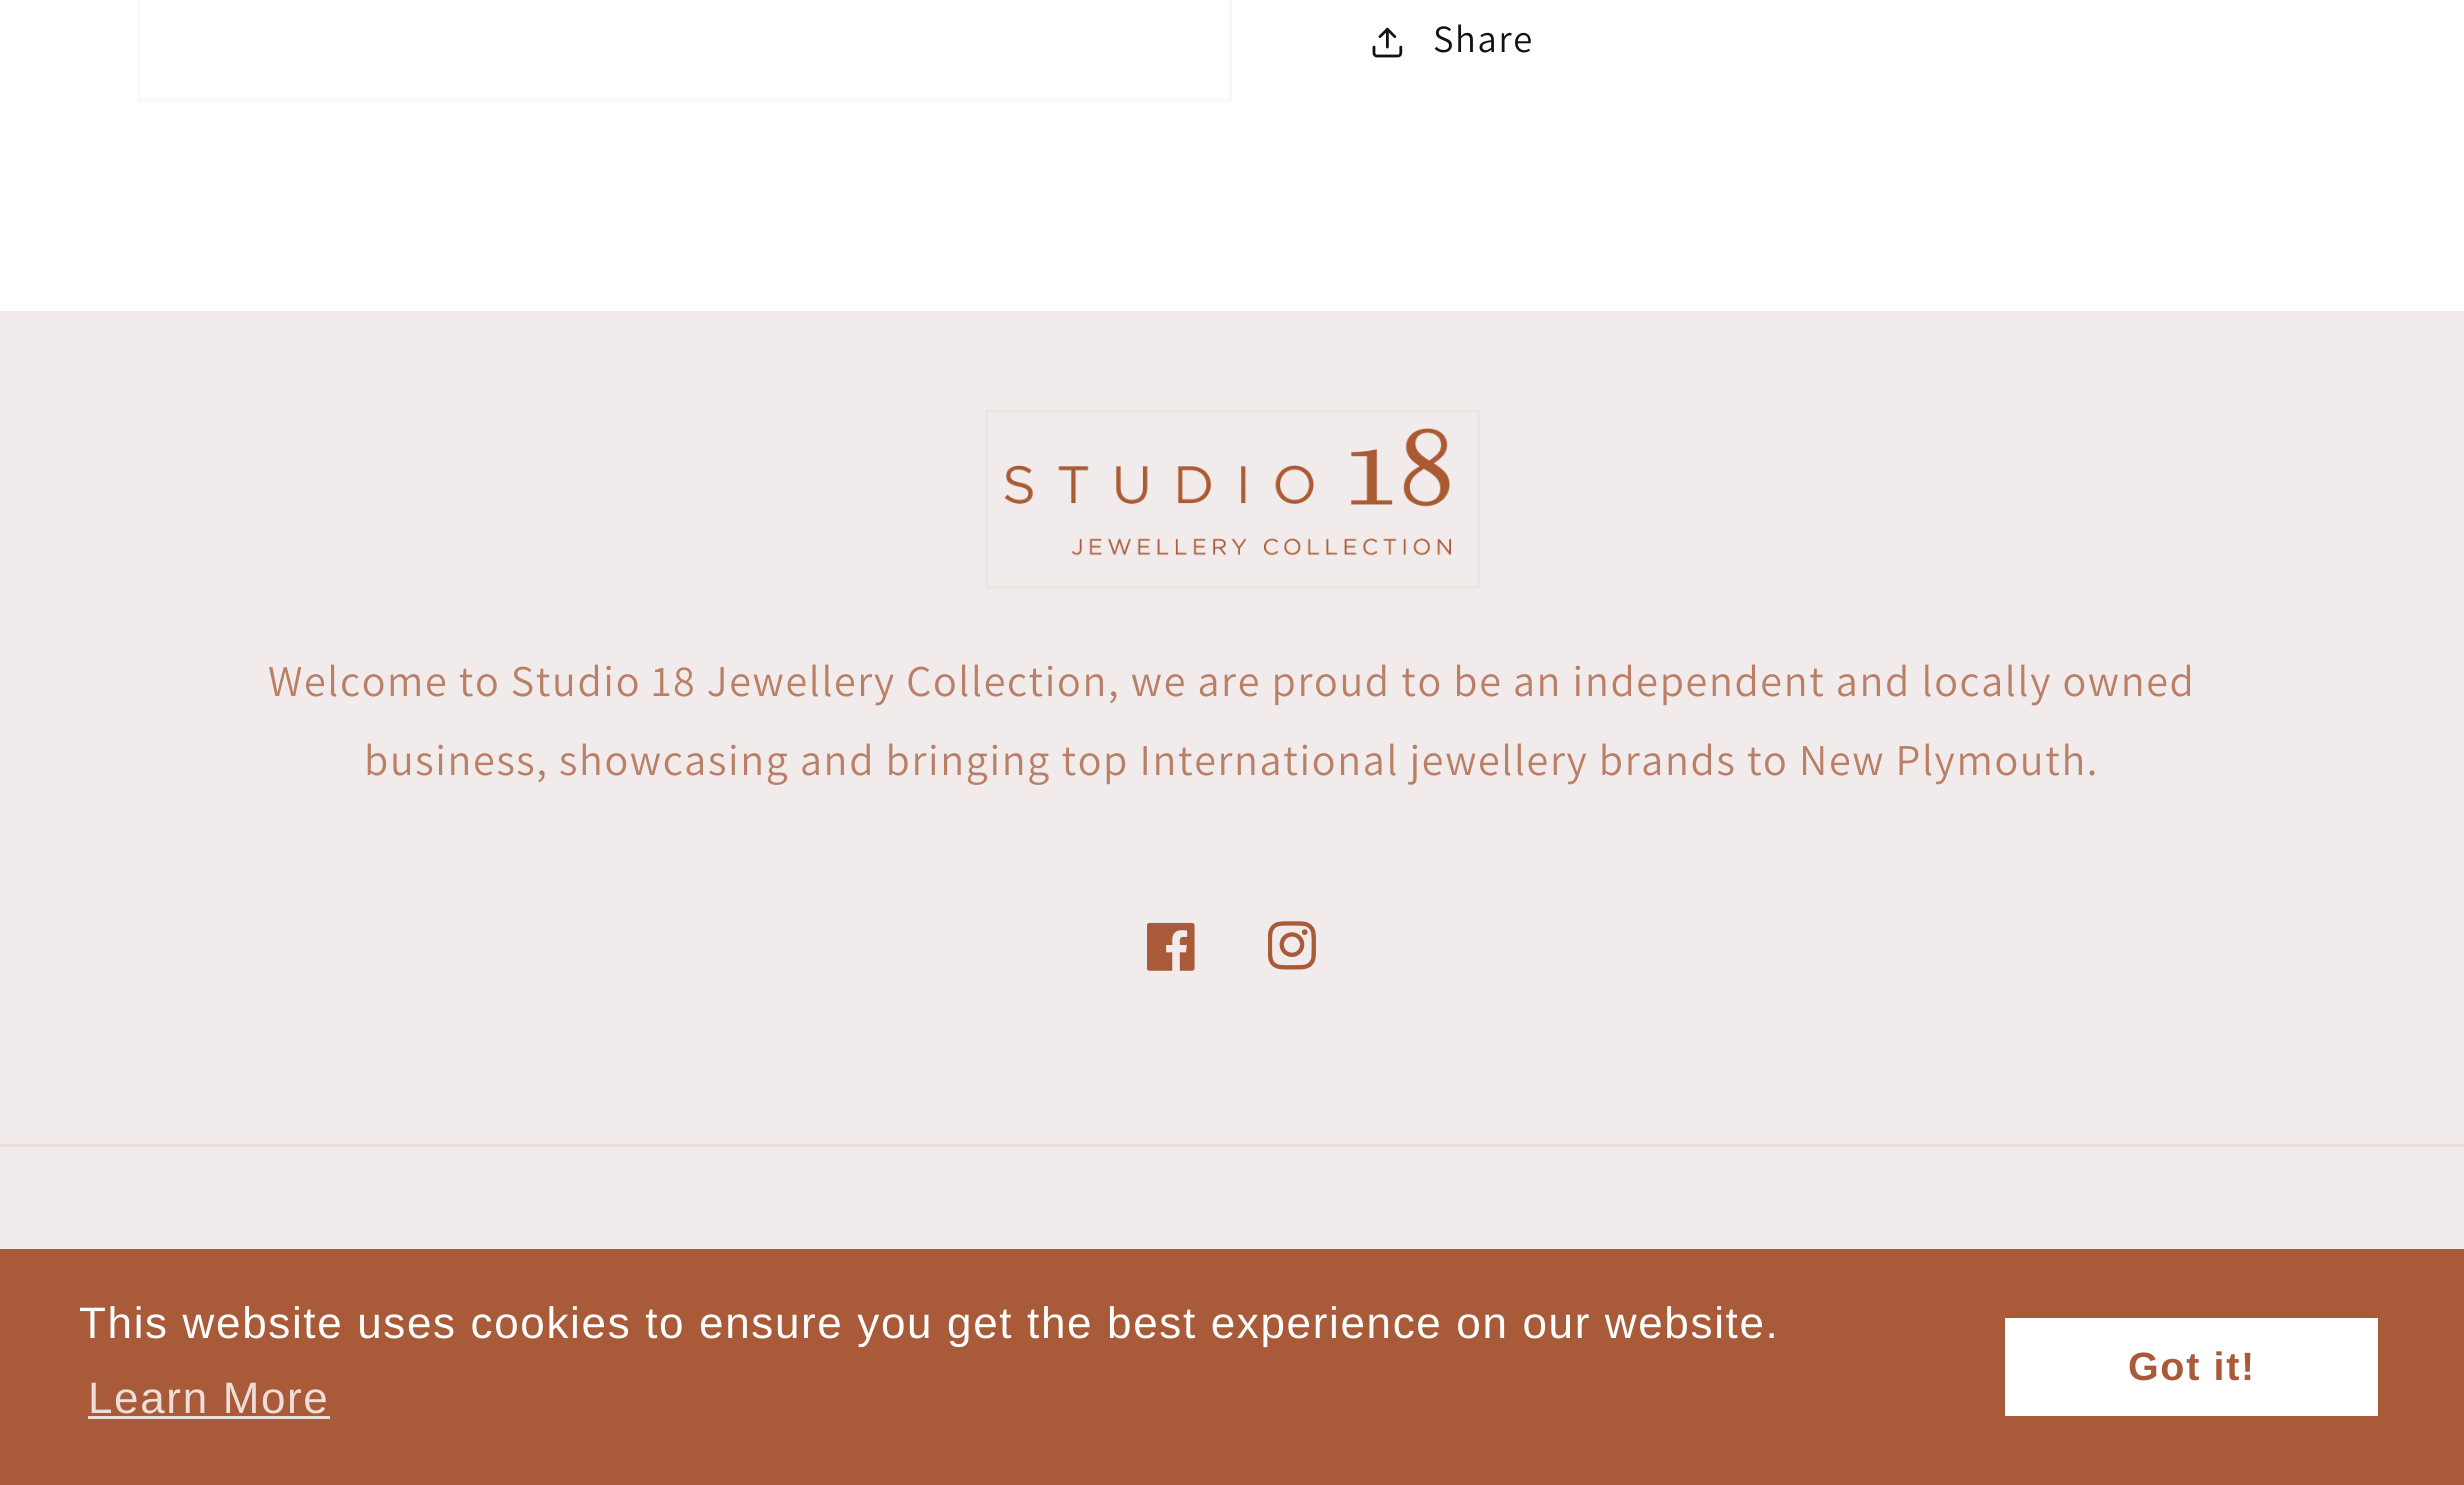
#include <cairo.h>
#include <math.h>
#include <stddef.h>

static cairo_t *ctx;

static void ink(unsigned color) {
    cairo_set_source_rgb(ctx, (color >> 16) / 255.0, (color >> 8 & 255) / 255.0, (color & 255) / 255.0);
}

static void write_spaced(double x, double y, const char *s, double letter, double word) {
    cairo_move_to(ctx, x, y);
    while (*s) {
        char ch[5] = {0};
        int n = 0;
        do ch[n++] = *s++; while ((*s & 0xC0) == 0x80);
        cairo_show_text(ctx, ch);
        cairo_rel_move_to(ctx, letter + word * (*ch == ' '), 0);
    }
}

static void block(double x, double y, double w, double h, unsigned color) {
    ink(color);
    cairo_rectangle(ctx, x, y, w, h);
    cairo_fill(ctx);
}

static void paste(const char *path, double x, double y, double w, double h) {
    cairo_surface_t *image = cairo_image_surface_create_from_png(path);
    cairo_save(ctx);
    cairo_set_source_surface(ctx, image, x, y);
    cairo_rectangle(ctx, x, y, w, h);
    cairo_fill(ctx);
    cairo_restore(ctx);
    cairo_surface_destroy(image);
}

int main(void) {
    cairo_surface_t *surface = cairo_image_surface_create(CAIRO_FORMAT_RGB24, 2464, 1485);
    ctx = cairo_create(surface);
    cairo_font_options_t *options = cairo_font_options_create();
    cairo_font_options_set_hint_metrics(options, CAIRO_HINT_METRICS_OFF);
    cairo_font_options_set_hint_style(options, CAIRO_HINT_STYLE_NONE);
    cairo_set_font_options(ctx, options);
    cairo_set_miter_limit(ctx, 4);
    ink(0xffffff);
    cairo_paint(ctx);
    cairo_rectangle(ctx, 139.5, -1.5, 1091, 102);
    ink(0xfbf7f5);
    cairo_set_line_width(ctx, 3);
    cairo_stroke(ctx);
    block(140, 0, 1, 98, 0xffffff);
    paste("pic1.png", 1372, 27, 31, 31);
    cairo_select_font_face(ctx, "Assistant", CAIRO_FONT_SLANT_NORMAL, CAIRO_FONT_WEIGHT_NORMAL);
    cairo_set_font_size(ctx, 38.5);
    ink(0x121212);
    write_spaced(1433, 52, "Share", 1.65, 0);
    block(0, 311, 2464, 938, 0xf1eceb);
    cairo_rectangle(ctx, 986.5, 411.5, 492, 176);
    ink(0xede5e2);
    cairo_stroke(ctx);
    paste("pic2.png", 1004, 428, 448, 128);
    cairo_set_font_size(ctx, 44);
    ink(0xba7f66);
    write_spaced(268, 696, "Welcome to Studio 18 Jewellery Collection, we are proud to be an independent and locally owned", 1.65, 0);
    write_spaced(364, 775, "business, showcasing and bringing top International jewellery brands to New Plymouth.", 1.65, 0);
    paste("pic3.png", 1147, 922, 48, 49);
    paste("pic4.png", 1268, 921, 48, 49);
    block(0, 1144, 2464, 3, 0xebe0dd);
    block(0, 1249, 2464, 236, 0xa85a39);
    cairo_select_font_face(ctx, "Liberation Sans", CAIRO_FONT_SLANT_NORMAL, CAIRO_FONT_WEIGHT_NORMAL);
    ink(0xffffff);
    write_spaced(79, 1338, "This website uses cookies to ensure you get the best experience on our website.", 1.65, 0);
    ink(0xeeded7);
    write_spaced(88, 1413, "Learn More", 1.65, 0);
    block(88, 1416, 242, 3, 0xeeded7);
    block(2005, 1318, 373, 98, 0xffffff);
    cairo_select_font_face(ctx, "Liberation Sans", CAIRO_FONT_SLANT_NORMAL, CAIRO_FONT_WEIGHT_BOLD);
    cairo_set_font_size(ctx, 39.5);
    ink(0xa85a39);
    write_spaced(2128, 1380, "Got it!", 1.65, 0);
    cairo_surface_write_to_png(surface, "screenshot.png");
    cairo_font_options_destroy(options);
    cairo_destroy(ctx);
    cairo_surface_destroy(surface);
    return 0;
}
